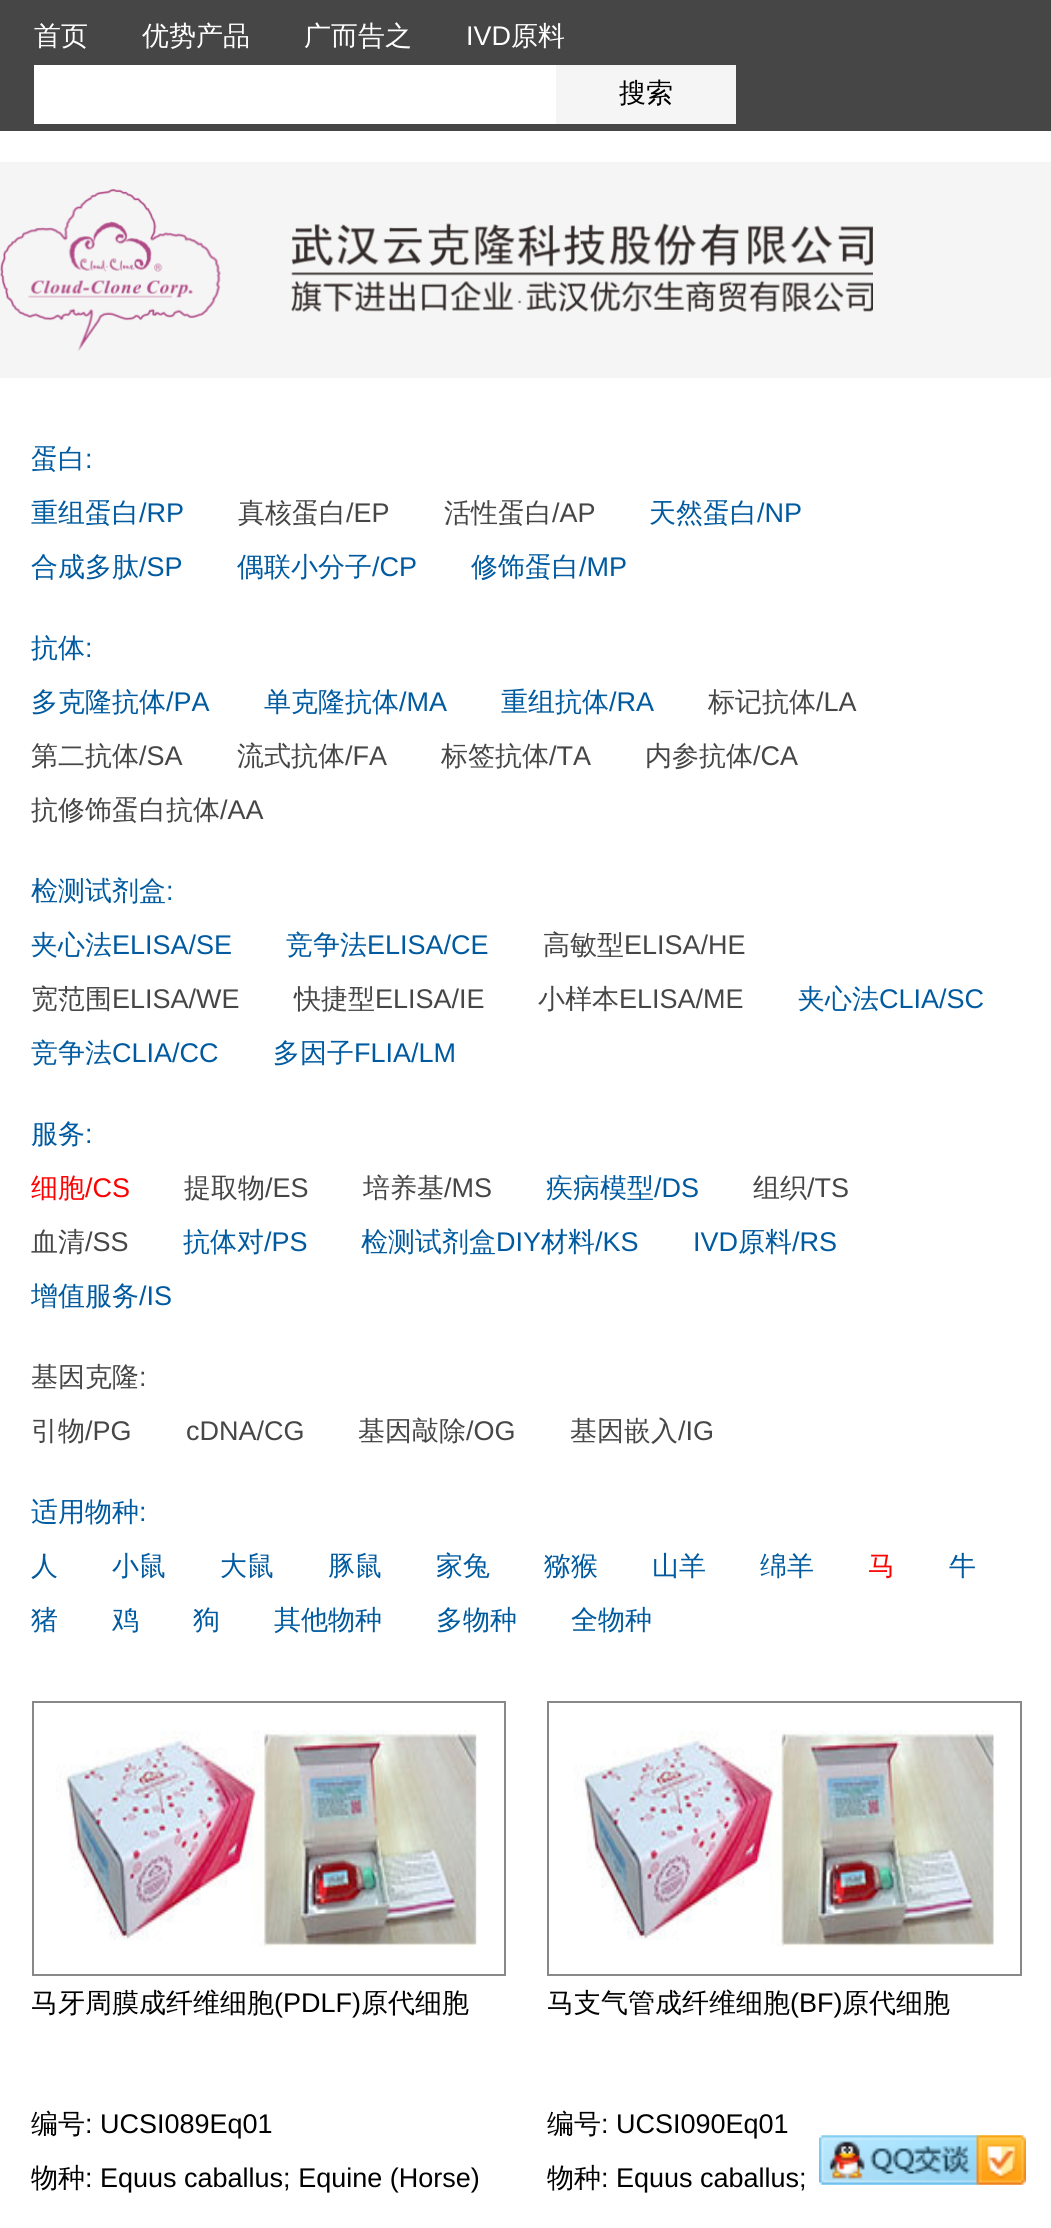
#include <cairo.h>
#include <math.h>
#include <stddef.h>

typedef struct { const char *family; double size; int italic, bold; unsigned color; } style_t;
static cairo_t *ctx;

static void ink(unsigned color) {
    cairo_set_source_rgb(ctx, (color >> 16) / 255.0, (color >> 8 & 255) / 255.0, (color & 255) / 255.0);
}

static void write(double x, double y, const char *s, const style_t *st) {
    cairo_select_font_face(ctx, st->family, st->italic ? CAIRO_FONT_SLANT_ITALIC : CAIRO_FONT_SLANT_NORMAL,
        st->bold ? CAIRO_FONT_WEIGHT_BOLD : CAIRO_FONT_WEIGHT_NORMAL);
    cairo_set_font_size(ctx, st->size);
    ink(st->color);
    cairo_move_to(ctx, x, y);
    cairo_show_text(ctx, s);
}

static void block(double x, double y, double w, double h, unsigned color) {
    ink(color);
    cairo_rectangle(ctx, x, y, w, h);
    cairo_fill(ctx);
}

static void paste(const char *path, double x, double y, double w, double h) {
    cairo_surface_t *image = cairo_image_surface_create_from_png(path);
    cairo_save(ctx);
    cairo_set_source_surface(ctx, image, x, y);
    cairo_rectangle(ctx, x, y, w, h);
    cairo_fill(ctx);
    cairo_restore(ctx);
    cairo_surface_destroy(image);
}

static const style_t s1 = {"WenQuanYi Zen Hei Medium", 27, 0, 0, 0xffffff};
static const style_t s2 = {"Liberation Sans", 27, 0, 0, 0xffffff};
static const style_t s3 = {"WenQuanYi Zen Hei Medium", 27, 0, 0, 0x000000};
static const style_t s4 = {"WenQuanYi Zen Hei Medium", 27, 0, 0, 0x005aa0};
static const style_t s5 = {"Liberation Sans", 27, 0, 0, 0x005aa0};
static const style_t s6 = {"WenQuanYi Zen Hei Medium", 27, 0, 0, 0x464646};
static const style_t s7 = {"Liberation Sans", 27, 0, 0, 0x464646};
static const style_t s8 = {"WenQuanYi Zen Hei Medium", 27, 0, 0, 0xff0000};
static const style_t s9 = {"Liberation Sans", 27, 0, 0, 0xff0000};
static const style_t s10 = {"Liberation Sans", 27, 0, 0, 0x000000};

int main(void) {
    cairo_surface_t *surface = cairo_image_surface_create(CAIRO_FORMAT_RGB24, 1051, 2228);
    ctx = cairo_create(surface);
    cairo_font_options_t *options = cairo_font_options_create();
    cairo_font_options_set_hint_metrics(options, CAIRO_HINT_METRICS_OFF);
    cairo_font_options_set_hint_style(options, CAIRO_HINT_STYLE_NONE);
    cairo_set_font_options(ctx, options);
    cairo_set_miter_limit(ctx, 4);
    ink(0xffffff);
    cairo_paint(ctx);
    block(0, 162, 1051, 216, 0xf5f5f5);
    block(0, 0, 1051, 131, 0x464646);
    write(34, 45, "首页", &s1);
    write(142, 45, "优势产品", &s1);
    write(304, 45, "广而告之", &s1);
    write(466, 45, "IVD", &s2);
    write(511, 45, "原料", &s1);
    block(34, 65, 522, 59, 0xffffff);
    block(556, 65, 180, 59, 0xf5f5f5);
    write(619, 102, "搜索", &s3);
    paste("pic1.png", 0, 189, 873, 162);
    write(31, 468, "蛋白", &s4);
    write(85, 468, ":", &s5);
    write(31, 522, "重组蛋白", &s4);
    write(139, 522, "/RP", &s5);
    write(238, 522, "真核蛋白", &s6);
    write(346, 522, "/EP", &s7);
    write(444, 522, "活性蛋白", &s6);
    write(552, 522, "/AP", &s7);
    write(649, 522, "天然蛋白", &s4);
    write(757, 522, "/NP", &s5);
    write(31, 576, "合成多肽", &s4);
    write(139, 576, "/SP", &s5);
    write(237, 576, "偶联小分子", &s4);
    write(372, 576, "/CP", &s5);
    write(471, 576, "修饰蛋白", &s4);
    write(579, 576, "/MP", &s5);
    write(31, 657, "抗体", &s4);
    write(85, 657, ":", &s5);
    write(31, 711, "多克隆抗体", &s4);
    write(166, 711, "/PA", &s5);
    write(264, 711, "单克隆抗体", &s4);
    write(399, 711, "/MA", &s5);
    write(501, 711, "重组抗体", &s4);
    write(609, 711, "/RA", &s5);
    write(708, 711, "标记抗体", &s6);
    write(816, 711, "/LA", &s7);
    write(31, 765, "第二抗体", &s6);
    write(139, 765, "/SA", &s7);
    write(237, 765, "流式抗体", &s6);
    write(345, 765, "/FA", &s7);
    write(441, 765, "标签抗体", &s6);
    write(549, 765, "/TA", &s7);
    write(645, 765, "内参抗体", &s6);
    write(753, 765, "/CA", &s7);
    write(31, 819, "抗修饰蛋白抗体", &s6);
    write(220, 819, "/AA", &s7);
    write(31, 900, "检测试剂盒", &s4);
    write(166, 900, ":", &s5);
    write(31, 954, "夹心法", &s4);
    write(112, 954, "ELISA/SE", &s5);
    write(286, 954, "竞争法", &s4);
    write(367, 954, "ELISA/CE", &s5);
    write(543, 954, "高敏型", &s6);
    write(624, 954, "ELISA/HE", &s7);
    write(31, 1008, "宽范围", &s6);
    write(112, 1008, "ELISA/WE", &s7);
    write(294, 1008, "快捷型", &s6);
    write(375, 1008, "ELISA/IE", &s7);
    write(538, 1008, "小样本", &s6);
    write(619, 1008, "ELISA/ME", &s7);
    write(798, 1008, "夹心法", &s4);
    write(879, 1008, "CLIA/SC", &s5);
    write(31, 1062, "竞争法", &s4);
    write(112, 1062, "CLIA/CC", &s5);
    write(273, 1062, "多因子", &s4);
    write(354, 1062, "FLIA/LM", &s5);
    write(31, 1143, "服务", &s4);
    write(85, 1143, ":", &s5);
    write(31, 1197, "细胞", &s8);
    write(85, 1197, "/CS", &s9);
    write(184, 1197, "提取物", &s6);
    write(265, 1197, "/ES", &s7);
    write(363, 1197, "培养基", &s6);
    write(444, 1197, "/MS", &s7);
    write(546, 1197, "疾病模型", &s4);
    write(654, 1197, "/DS", &s5);
    write(753, 1197, "组织", &s6);
    write(807, 1197, "/TS", &s7);
    write(31, 1251, "血清", &s6);
    write(85, 1251, "/SS", &s7);
    write(183, 1251, "抗体对", &s4);
    write(264, 1251, "/PS", &s5);
    write(361, 1251, "检测试剂盒", &s4);
    write(496, 1251, "DIY", &s5);
    write(541, 1251, "材料", &s4);
    write(595, 1251, "/KS", &s5);
    write(693, 1251, "IVD", &s5);
    write(738, 1251, "原料", &s4);
    write(792, 1251, "/RS", &s5);
    write(31, 1305, "增值服务", &s4);
    write(139, 1305, "/IS", &s5);
    write(31, 1386, "基因克隆", &s6);
    write(139, 1386, ":", &s7);
    write(31, 1440, "引物", &s6);
    write(85, 1440, "/PG", &s7);
    write(186, 1440, "cDNA/CG", &s7);
    write(358, 1440, "基因敲除", &s6);
    write(466, 1440, "/OG", &s7);
    write(570, 1440, "基因嵌入", &s6);
    write(678, 1440, "/IG", &s7);
    write(31, 1521, "适用物种", &s4);
    write(139, 1521, ":", &s5);
    write(31, 1575, "人", &s4);
    write(112, 1575, "小鼠", &s4);
    write(220, 1575, "大鼠", &s4);
    write(328, 1575, "豚鼠", &s4);
    write(436, 1575, "家兔", &s4);
    write(544, 1575, "猕猴", &s4);
    write(652, 1575, "山羊", &s4);
    write(760, 1575, "绵羊", &s4);
    write(868, 1575, "马", &s8);
    write(949, 1575, "牛", &s4);
    write(31, 1629, "猪", &s4);
    write(112, 1629, "鸡", &s4);
    write(193, 1629, "狗", &s4);
    write(274, 1629, "其他物种", &s4);
    write(436, 1629, "多物种", &s4);
    write(571, 1629, "全物种", &s4);
    cairo_rectangle(ctx, 33, 1702, 472, 273);
    ink(0x888888);
    cairo_stroke(ctx);
    paste("pic2.png", 56, 1730, 421, 217);
    write(31, 2012, "马牙周膜成纤维细胞", &s3);
    write(274, 2012, "(PDLF)", &s10);
    write(361, 2012, "原代细胞", &s3);
    write(31, 2133, "编号", &s3);
    write(85, 2133, ": UCSI089Eq01", &s10);
    write(31, 2187, "物种", &s3);
    write(85, 2187, ": Equus caballus; Equine (Horse)", &s10);
    cairo_rectangle(ctx, 548, 1702, 473, 273);
    ink(0x888888);
    cairo_stroke(ctx);
    paste("pic3.png", 574, 1730, 420, 217);
    write(547, 2012, "马支气管成纤维细胞", &s3);
    write(790, 2012, "(BF)", &s10);
    write(842, 2012, "原代细胞", &s3);
    write(547, 2133, "编号", &s3);
    write(601, 2133, ": UCSI090Eq01", &s10);
    write(547, 2187, "物种", &s3);
    write(601, 2187, ": Equus caballus;", &s10);
    paste("pic4.png", 819, 2135, 207, 50);
    cairo_surface_write_to_png(surface, "screenshot.png");
    cairo_font_options_destroy(options);
    cairo_destroy(ctx);
    cairo_surface_destroy(surface);
    return 0;
}
